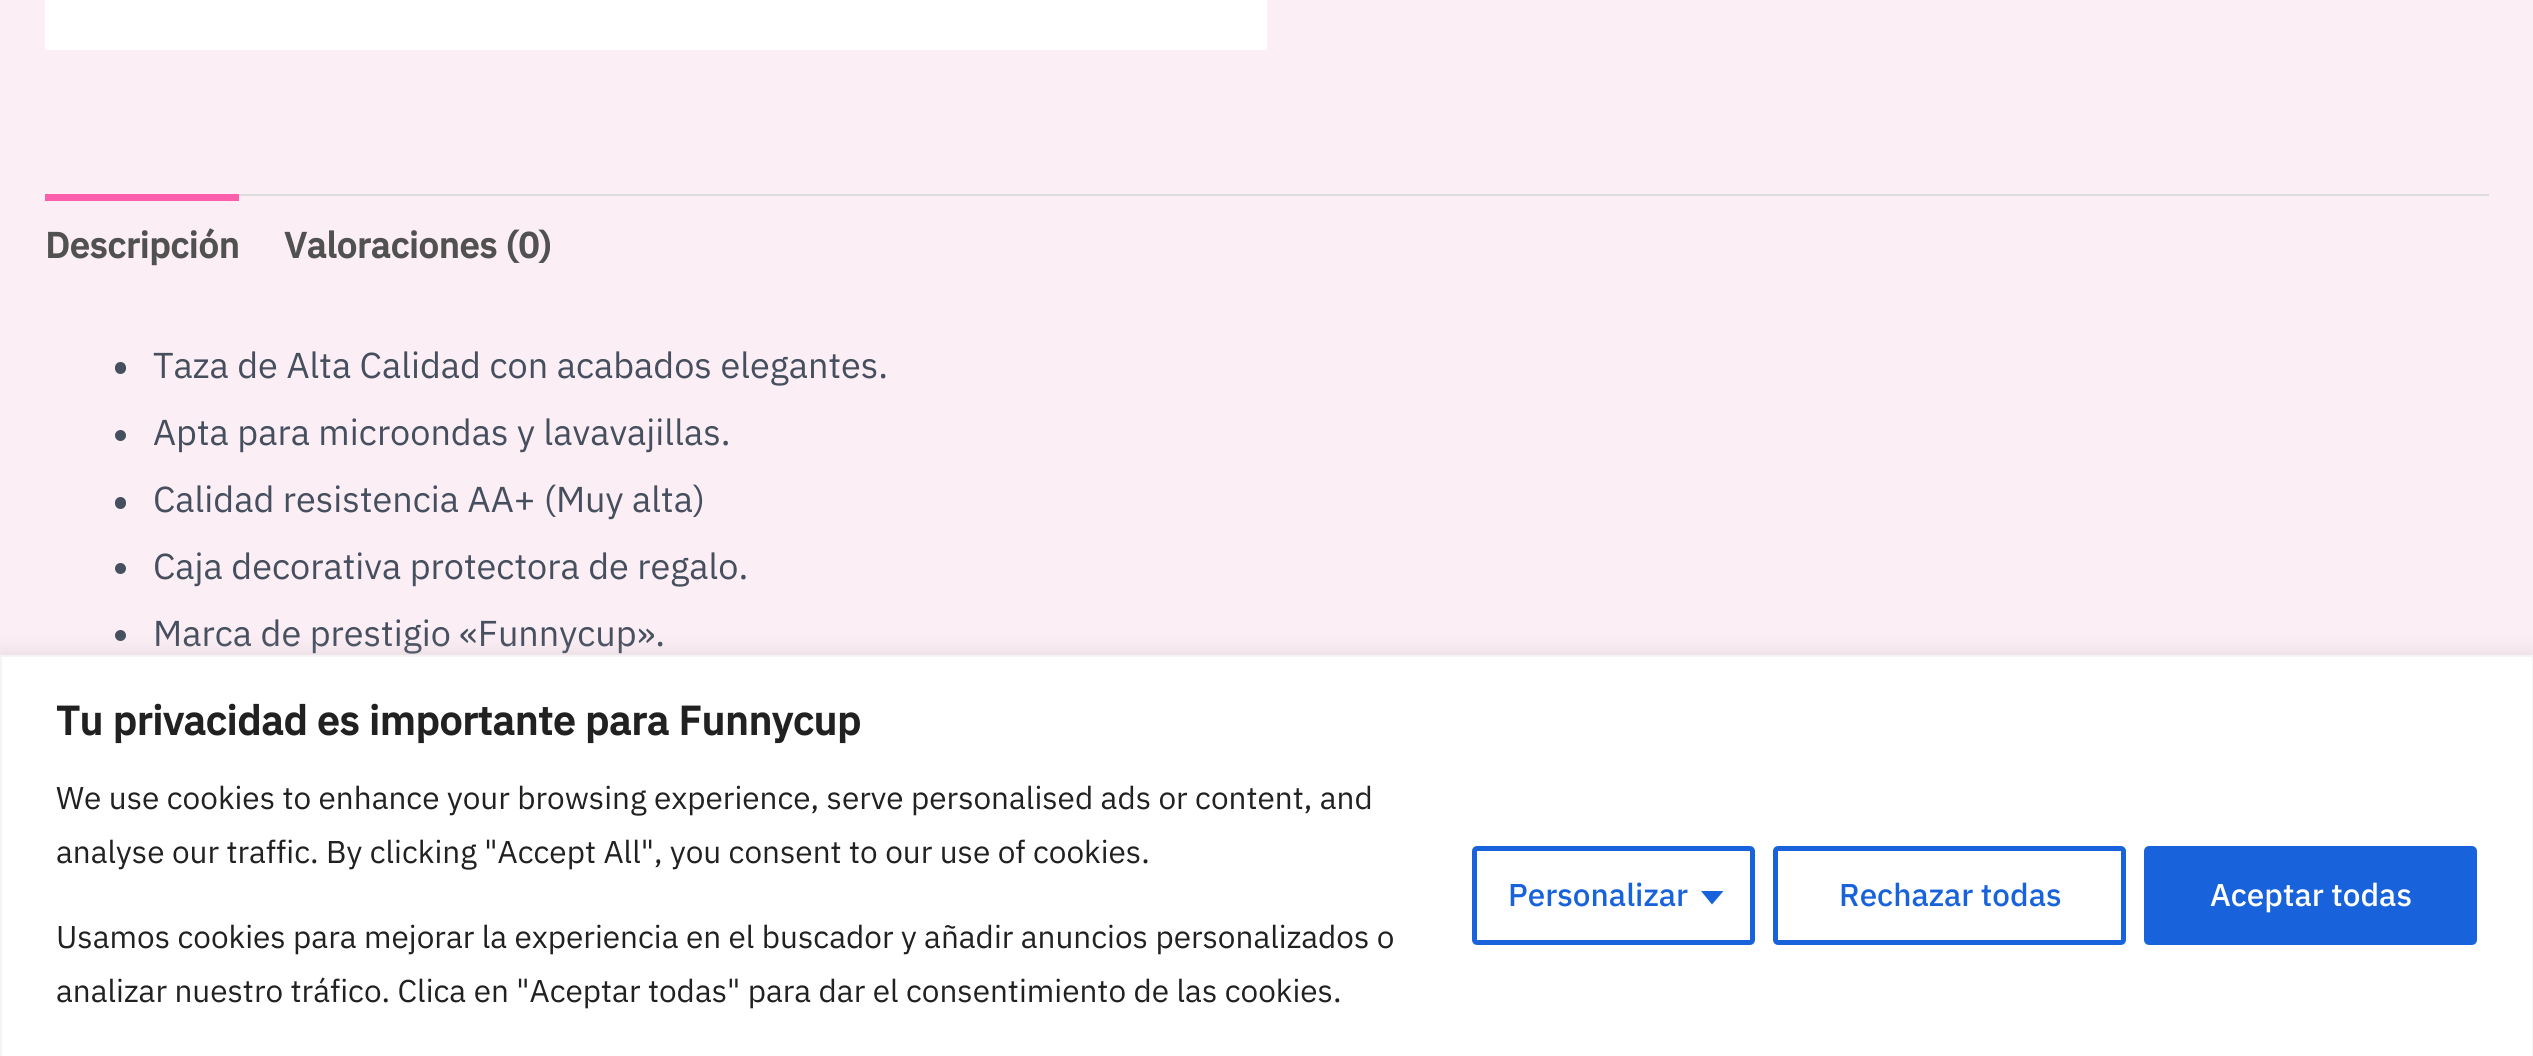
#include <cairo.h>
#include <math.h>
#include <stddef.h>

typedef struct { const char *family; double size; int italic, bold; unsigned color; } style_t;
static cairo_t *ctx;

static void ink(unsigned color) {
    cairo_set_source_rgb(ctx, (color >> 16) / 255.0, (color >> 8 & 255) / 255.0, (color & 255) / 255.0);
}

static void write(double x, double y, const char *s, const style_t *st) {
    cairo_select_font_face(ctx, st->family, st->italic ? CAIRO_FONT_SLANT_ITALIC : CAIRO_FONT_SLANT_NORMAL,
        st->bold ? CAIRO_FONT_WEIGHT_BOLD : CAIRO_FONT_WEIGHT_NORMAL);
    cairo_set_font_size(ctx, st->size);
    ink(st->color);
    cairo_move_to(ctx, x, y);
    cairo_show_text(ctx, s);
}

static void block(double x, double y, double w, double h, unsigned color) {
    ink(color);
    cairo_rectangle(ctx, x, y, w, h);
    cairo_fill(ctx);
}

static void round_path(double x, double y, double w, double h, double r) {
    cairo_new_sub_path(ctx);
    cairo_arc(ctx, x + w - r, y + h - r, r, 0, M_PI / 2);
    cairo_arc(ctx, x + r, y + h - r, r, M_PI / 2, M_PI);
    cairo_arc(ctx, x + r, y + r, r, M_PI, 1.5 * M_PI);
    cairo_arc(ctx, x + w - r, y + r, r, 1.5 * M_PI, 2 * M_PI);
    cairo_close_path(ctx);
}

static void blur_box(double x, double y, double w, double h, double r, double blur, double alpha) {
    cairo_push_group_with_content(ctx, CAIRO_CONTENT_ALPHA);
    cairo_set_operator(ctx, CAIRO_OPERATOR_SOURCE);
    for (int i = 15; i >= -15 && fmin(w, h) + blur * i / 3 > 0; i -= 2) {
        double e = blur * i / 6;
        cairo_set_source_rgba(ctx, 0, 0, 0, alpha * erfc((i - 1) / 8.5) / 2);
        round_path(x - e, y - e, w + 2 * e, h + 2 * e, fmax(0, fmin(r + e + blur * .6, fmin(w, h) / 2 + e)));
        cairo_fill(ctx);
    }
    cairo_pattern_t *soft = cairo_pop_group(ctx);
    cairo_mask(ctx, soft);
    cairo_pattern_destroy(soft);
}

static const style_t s1 = {"IBM Plex Sans", 36, 0, 1, 0x515151};
static const style_t s2 = {"IBM Plex Sans", 36, 0, 0, 0x454f5e};
static const style_t s3 = {"IBM Plex Sans", 40.5, 0, 1, 0x212121};
static const style_t s4 = {"IBM Plex Sans", 31.5, 0, 0, 0x212121};
static const style_t s5 = {"IBM Plex Sans Medium", 31.5, 0, 0, 0x1863dc};
static const style_t s6 = {"IBM Plex Sans Medium", 31.5, 0, 0, 0xffffff};

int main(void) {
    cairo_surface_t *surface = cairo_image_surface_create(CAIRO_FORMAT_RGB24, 2533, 1056);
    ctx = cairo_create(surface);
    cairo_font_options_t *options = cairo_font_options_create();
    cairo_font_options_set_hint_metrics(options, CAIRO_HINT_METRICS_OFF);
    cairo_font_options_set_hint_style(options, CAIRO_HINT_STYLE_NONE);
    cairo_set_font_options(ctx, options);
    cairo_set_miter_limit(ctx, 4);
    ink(0xfceef5);
    cairo_paint(ctx);
    block(45, 0, 1222, 50, 0xffffff);
    block(239, 194, 2250, 2, 0xdddddd);
    block(45, 194, 194, 7, 0xfb5fab);
    write(45, 258, "Descripción", &s1);
    write(284, 258, "Valoraciones (0)", &s1);
    ink(0x454f5e);
    round_path(115, 362, 11, 12, 5.5);
    cairo_fill(ctx);
    write(153, 378, "Taza de Alta Calidad con acabados elegantes.", &s2);
    cairo_new_path(ctx);
    cairo_arc(ctx, 120.5, 435.5, 5.5, 0, 2 * M_PI);
    cairo_fill(ctx);
    write(153, 445, "Apta para microondas y lavavajillas.", &s2);
    round_path(115, 497, 11, 12, 5.5);
    cairo_fill(ctx);
    write(153, 512, "Calidad resistencia AA+ (Muy alta)", &s2);
    cairo_new_path(ctx);
    cairo_arc(ctx, 120.5, 568.5, 5.5, 0, 2 * M_PI);
    cairo_fill(ctx);
    write(153, 579, "Caja decorativa protectora de regalo.", &s2);
    cairo_new_path(ctx);
    cairo_arc(ctx, 120.5, 635.5, 5.5, 0, 2 * M_PI);
    cairo_fill(ctx);
    write(153, 646, "Marca de prestigio «Funnycup».", &s2);
    ink(0xacabab);
    blur_box(0, 653, 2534, 402, 0, 11, 0.3);
    ink(0xffffff);
    cairo_rectangle(ctx, 1, 656, 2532, 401);
    cairo_fill_preserve(ctx);
    ink(0xf4f4f4);
    cairo_stroke(ctx);
    write(56, 735, "Tu privacidad es importante para Funnycup", &s3);
    write(56, 809, "We use cookies to enhance your browsing experience, serve personalised ads or content, and", &s4);
    write(56, 863, "analyse our traffic. By clicking \"Accept All\", you consent to our use of cookies.", &s4);
    write(56, 948, "Usamos cookies para mejorar la experiencia en el buscador y añadir anuncios personalizados o", &s4);
    write(56, 1002, "analizar nuestro tráfico. Clica en \"Aceptar todas\" para dar el consentimiento de las cookies.", &s4);
    round_path(1474.5, 848.5, 278, 94, 2.5);
    ink(0x1863dc);
    cairo_set_line_width(ctx, 5);
    cairo_stroke(ctx);
    write(1508, 906, "Personalizar", &s5);
    cairo_new_path(ctx);
    cairo_move_to(ctx, 1701, 891);
    cairo_line_to(ctx, 1723.5, 891);
    cairo_line_to(ctx, 1712, 904.5);
    cairo_close_path(ctx);
    cairo_fill(ctx);
    round_path(1775.5, 848.5, 348, 94, 2.5);
    cairo_stroke(ctx);
    write(1839, 906, "Rechazar todas", &s5);
    round_path(2146.5, 848.5, 328, 94, 2.5);
    cairo_fill_preserve(ctx);
    cairo_stroke(ctx);
    write(2210, 906, "Aceptar todas", &s6);
    cairo_surface_write_to_png(surface, "screenshot.png");
    cairo_font_options_destroy(options);
    cairo_destroy(ctx);
    cairo_surface_destroy(surface);
    return 0;
}
